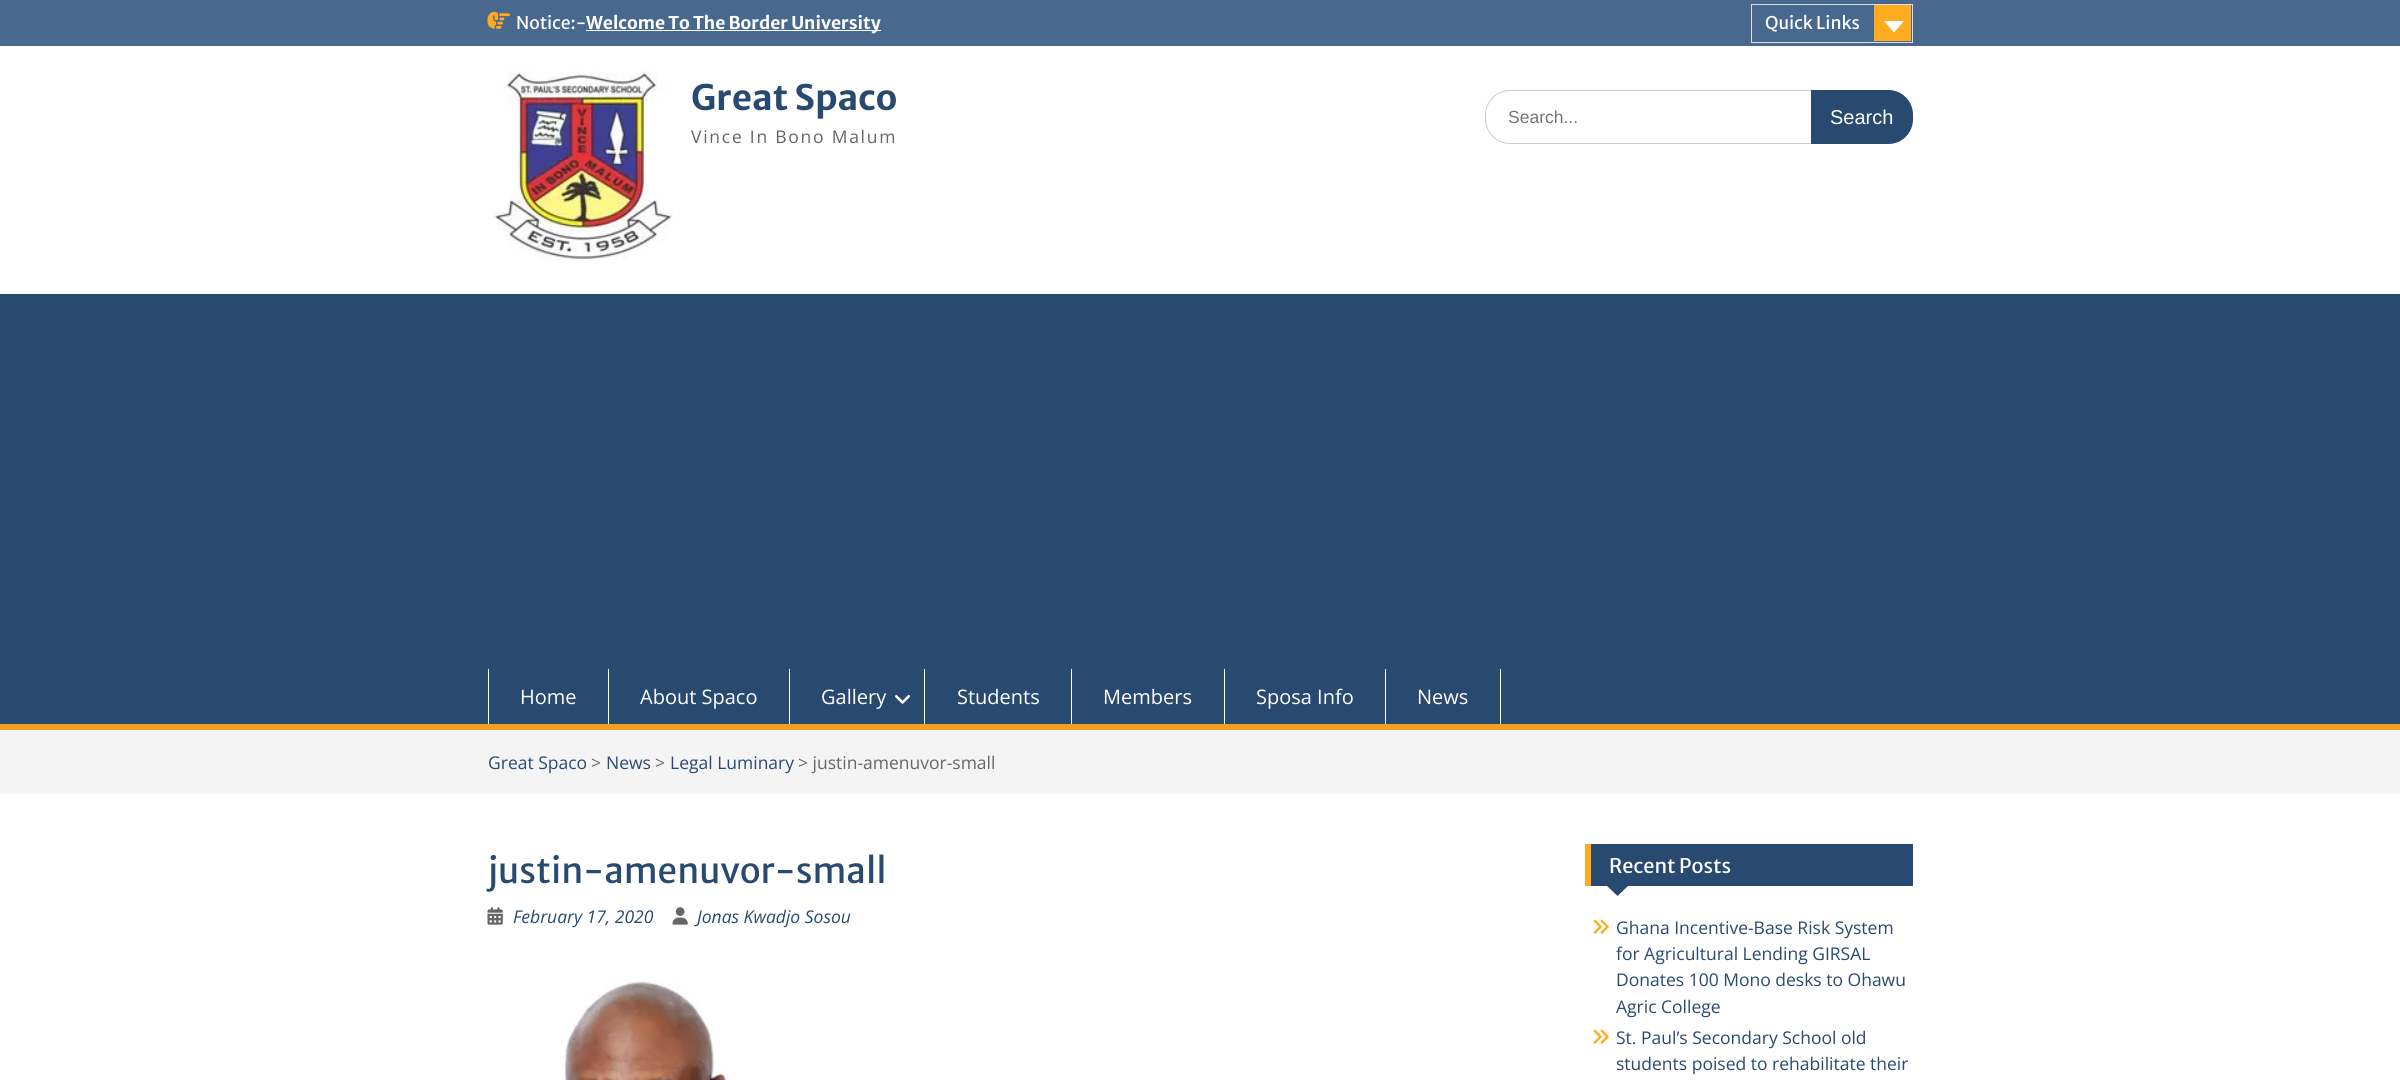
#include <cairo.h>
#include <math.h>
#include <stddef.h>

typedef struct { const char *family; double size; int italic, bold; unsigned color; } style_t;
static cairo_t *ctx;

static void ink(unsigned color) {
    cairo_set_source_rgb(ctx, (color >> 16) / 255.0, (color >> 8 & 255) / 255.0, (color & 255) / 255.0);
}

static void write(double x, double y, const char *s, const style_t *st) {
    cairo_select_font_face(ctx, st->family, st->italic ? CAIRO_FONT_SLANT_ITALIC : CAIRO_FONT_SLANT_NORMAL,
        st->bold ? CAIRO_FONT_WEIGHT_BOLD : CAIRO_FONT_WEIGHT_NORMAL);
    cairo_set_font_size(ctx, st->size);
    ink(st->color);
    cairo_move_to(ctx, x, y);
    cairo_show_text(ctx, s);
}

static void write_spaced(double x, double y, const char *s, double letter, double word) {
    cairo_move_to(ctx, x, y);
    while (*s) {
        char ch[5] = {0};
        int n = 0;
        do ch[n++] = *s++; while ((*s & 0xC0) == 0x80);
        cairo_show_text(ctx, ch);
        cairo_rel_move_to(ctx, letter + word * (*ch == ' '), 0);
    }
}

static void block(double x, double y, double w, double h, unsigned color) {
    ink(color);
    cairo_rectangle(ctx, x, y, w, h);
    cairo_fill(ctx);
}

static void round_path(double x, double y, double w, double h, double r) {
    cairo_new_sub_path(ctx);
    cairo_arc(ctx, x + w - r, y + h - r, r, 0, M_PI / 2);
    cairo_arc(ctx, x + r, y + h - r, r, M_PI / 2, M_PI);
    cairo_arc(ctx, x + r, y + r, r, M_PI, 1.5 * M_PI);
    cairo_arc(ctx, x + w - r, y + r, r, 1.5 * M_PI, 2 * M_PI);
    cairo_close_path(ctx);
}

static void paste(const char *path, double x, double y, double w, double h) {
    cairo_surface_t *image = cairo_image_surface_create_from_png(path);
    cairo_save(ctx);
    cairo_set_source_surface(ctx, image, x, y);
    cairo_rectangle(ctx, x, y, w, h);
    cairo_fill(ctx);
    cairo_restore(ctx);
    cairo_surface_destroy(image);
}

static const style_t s1 = {"Merriweather Sans", 17.5, 0, 0, 0xffffff};
static const style_t s2 = {"Merriweather Sans", 17.5, 0, 1, 0xffffff};
static const style_t s3 = {"Merriweather Sans", 35, 0, 1, 0x294a70};
static const style_t s4 = {"Liberation Sans", 17.5, 0, 0, 0x757575};
static const style_t s5 = {"Liberation Sans", 20, 0, 0, 0xffffff};
static const style_t s6 = {"Open Sans", 20, 0, 0, 0xffffff};
static const style_t s7 = {"Open Sans", 17.5, 0, 0, 0x294a70};
static const style_t s8 = {"Open Sans", 17.5, 0, 0, 0x666666};
static const style_t s9 = {"Merriweather Sans", 35, 0, 0, 0x294a70};
static const style_t s10 = {"Open Sans", 17.5, 1, 0, 0x294a70};
static const style_t s11 = {"Merriweather Sans", 20, 0, 0, 0xffffff};

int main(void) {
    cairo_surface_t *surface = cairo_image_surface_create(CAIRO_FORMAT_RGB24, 2400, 1080);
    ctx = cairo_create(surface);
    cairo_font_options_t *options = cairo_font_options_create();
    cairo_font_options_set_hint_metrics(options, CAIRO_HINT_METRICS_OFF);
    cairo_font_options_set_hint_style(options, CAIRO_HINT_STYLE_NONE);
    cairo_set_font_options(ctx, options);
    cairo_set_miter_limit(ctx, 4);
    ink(0xffffff);
    cairo_paint(ctx);
    block(0, 0, 2400, 46, 0x49688e);
    paste("pic1.png", 487, 11, 23, 18);
    write(516, 29, "Notice:-", &s1);
    block(586, 30, 295, 1, 0xffffff);
    write(586, 29, "Welcome To The Border University", &s2);
    cairo_rectangle(ctx, 1751.5, 4.5, 161, 38);
    ink(0xdddddd);
    cairo_set_line_width(ctx, 1);
    cairo_stroke(ctx);
    write(1765, 29, "Quick Links", &s1);
    block(1874, 5, 37, 36, 0xffab1f);
    ink(0xffffff);
    cairo_new_path(ctx);
    cairo_move_to(ctx, 1884, 21);
    cairo_line_to(ctx, 1904, 21);
    cairo_line_to(ctx, 1894, 32.5);
    cairo_close_path(ctx);
    cairo_fill(ctx);
    paste("pic2.png", 492, 71, 181, 190);
    write(691, 110, "Great Spaco", &s3);
    cairo_select_font_face(ctx, "Open Sans", CAIRO_FONT_SLANT_NORMAL, CAIRO_FONT_WEIGHT_NORMAL);
    cairo_set_font_size(ctx, 17.5);
    ink(0x666666);
    write_spaced(691, 143, "Vince In Bono Malum", 1.75, 0);
    round_path(1485.5, 90.5, 427, 53, 24.5);
    ink(0xcccccc);
    cairo_stroke(ctx);
    write(1508, 123, "Search...", &s4);
    ink(0x294a70);
    cairo_new_path(ctx);
    cairo_move_to(ctx, 1811, 90);
    cairo_line_to(ctx, 1888, 90);
    cairo_curve_to(ctx, 1902, 90, 1913, 101, 1913, 115);
    cairo_line_to(ctx, 1913, 119);
    cairo_curve_to(ctx, 1913, 133, 1902, 144, 1888, 144);
    cairo_line_to(ctx, 1811, 144);
    cairo_close_path(ctx);
    cairo_fill(ctx);
    write(1830, 124, "Search", &s5);
    block(0, 294, 2400, 430, 0x294a70);
    block(0, 724, 2400, 6, 0xf4a024);
    block(608, 669, 1, 55, 0xffffff);
    block(488, 669, 1, 55, 0xffffff);
    write(520, 704, "Home", &s6);
    block(789, 669, 1, 55, 0xffffff);
    write(640, 704, "About Spaco", &s6);
    block(924, 669, 1, 55, 0xffffff);
    write(821, 704, "Gallery", &s6);
    paste("pic3.png", 895, 695, 15, 9);
    block(1071, 669, 1, 55, 0xffffff);
    write(957, 704, "Students", &s6);
    block(1224, 669, 1, 55, 0xffffff);
    write(1103, 704, "Members", &s6);
    block(1385, 669, 1, 55, 0xffffff);
    write(1256, 704, "Sposa Info", &s6);
    block(1500, 669, 1, 55, 0xffffff);
    write(1417, 704, "News", &s6);
    block(0, 730, 2400, 64, 0xf4f4f4);
    write(488, 769, "Great Spaco", &s7);
    write(591, 769, ">", &s8);
    write(606, 769, "News", &s7);
    write(655, 769, ">", &s8);
    write(670, 769, "Legal Luminary", &s7);
    write(798, 769, "> justin-amenuvor-small", &s8);
    write(488, 883, "justin-amenuvor-small", &s9);
    paste("pic4.png", 487, 907, 16, 18);
    write(513, 923, "February 17, 2020", &s10);
    paste("pic5.png", 672, 907, 16, 18);
    write(697, 923, "Jonas Kwadjo Sosou", &s10);
    paste("pic6.png", 562, 981, 166, 99);
    block(1591, 844, 322, 42, 0x294a70);
    block(1585, 844, 6, 42, 0xffab1f);
    write(1609, 873, "Recent Posts", &s11);
    ink(0x294a70);
    cairo_new_path(ctx);
    cairo_move_to(ctx, 1606, 885);
    cairo_line_to(ctx, 1629, 885);
    cairo_line_to(ctx, 1617.5, 896);
    cairo_close_path(ctx);
    cairo_fill(ctx);
    paste("pic7.png", 1593, 919, 16, 15);
    write(1616, 934, "Ghana Incentive-Base Risk System", &s7);
    write(1616, 960, "for Agricultural Lending GIRSAL", &s7);
    write(1616, 986, "Donates 100 Mono desks to Ohawu", &s7);
    write(1616, 1013, "Agric College", &s7);
    paste("pic7.png", 1593, 1029, 16, 15);
    write(1616, 1044, "St. Paul’s Secondary School old", &s7);
    write(1616, 1070, "students poised to rehabilitate their", &s7);
    cairo_surface_write_to_png(surface, "screenshot.png");
    cairo_font_options_destroy(options);
    cairo_destroy(ctx);
    cairo_surface_destroy(surface);
    return 0;
}
